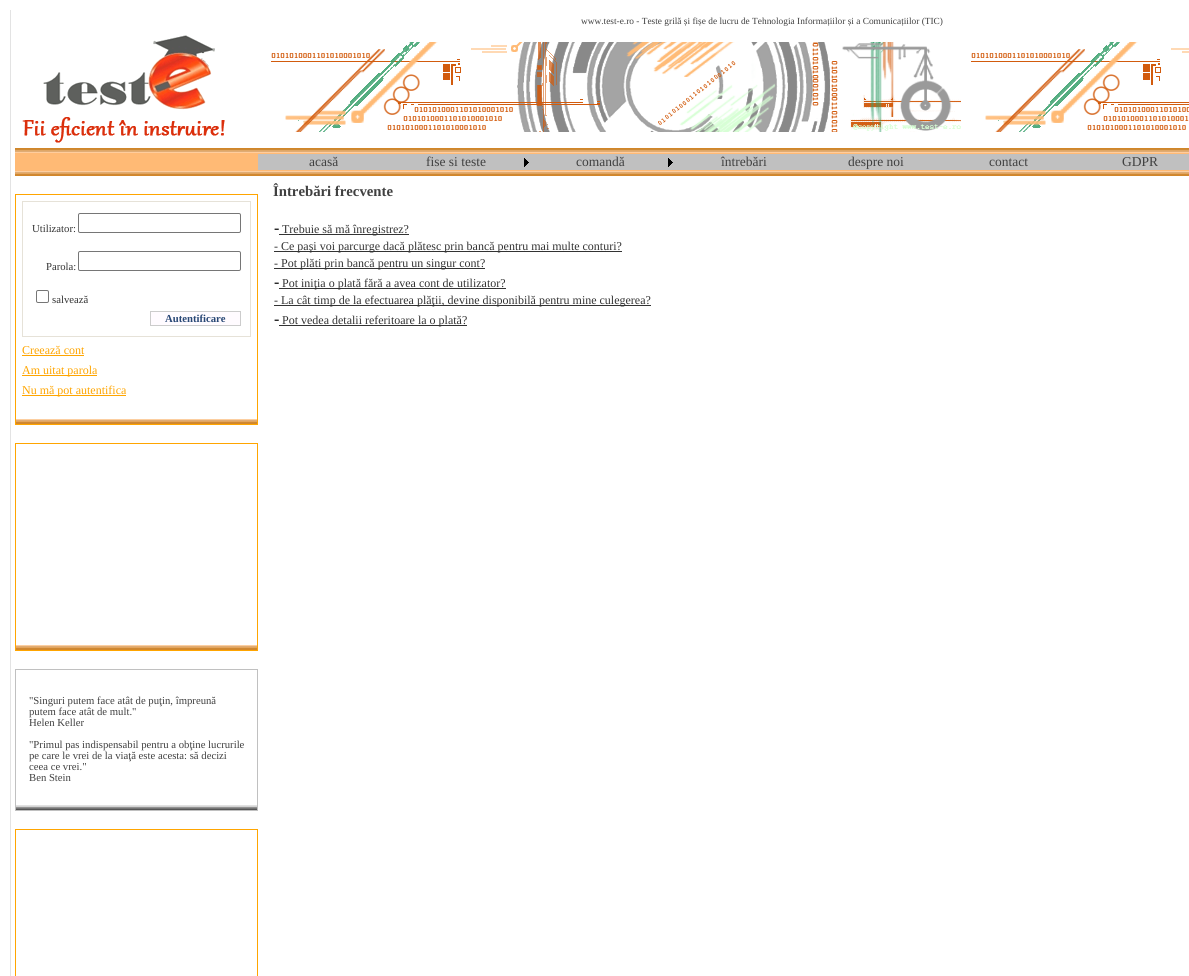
#include <cairo.h>
#include <math.h>
#include <stddef.h>

typedef struct { const char *family; double size; int italic, bold; unsigned color; } style_t;
static cairo_t *ctx;

static void ink(unsigned color) {
    cairo_set_source_rgb(ctx, (color >> 16) / 255.0, (color >> 8 & 255) / 255.0, (color & 255) / 255.0);
}

static void write(double x, double y, const char *s, const style_t *st) {
    cairo_select_font_face(ctx, st->family, st->italic ? CAIRO_FONT_SLANT_ITALIC : CAIRO_FONT_SLANT_NORMAL,
        st->bold ? CAIRO_FONT_WEIGHT_BOLD : CAIRO_FONT_WEIGHT_NORMAL);
    cairo_set_font_size(ctx, st->size);
    ink(st->color);
    cairo_move_to(ctx, x, y);
    cairo_show_text(ctx, s);
}

static void block(double x, double y, double w, double h, unsigned color) {
    ink(color);
    cairo_rectangle(ctx, x, y, w, h);
    cairo_fill(ctx);
}

static void round_path(double x, double y, double w, double h, double r) {
    cairo_new_sub_path(ctx);
    cairo_arc(ctx, x + w - r, y + h - r, r, 0, M_PI / 2);
    cairo_arc(ctx, x + r, y + h - r, r, M_PI / 2, M_PI);
    cairo_arc(ctx, x + r, y + r, r, M_PI, 1.5 * M_PI);
    cairo_arc(ctx, x + w - r, y + r, r, 1.5 * M_PI, 2 * M_PI);
    cairo_close_path(ctx);
}

static void paste(const char *path, double x, double y, double w, double h) {
    cairo_surface_t *image = cairo_image_surface_create_from_png(path);
    cairo_save(ctx);
    cairo_set_source_surface(ctx, image, x, y);
    cairo_rectangle(ctx, x, y, w, h);
    cairo_fill(ctx);
    cairo_restore(ctx);
    cairo_surface_destroy(image);
}

static const style_t s1 = {"Liberation Serif", 9.35, 0, 0, 0x404040};
static const style_t s2 = {"Liberation Serif", 13.5, 0, 0, 0x404040};
static const style_t s3 = {"Liberation Serif", 10.7, 0, 0, 0x333333};
static const style_t s4 = {"Liberation Serif", 10.7, 0, 1, 0x284775};
static const style_t s5 = {"Liberation Serif", 12, 0, 0, 0xffa500};
static const style_t s6 = {"Liberation Serif", 10.7, 0, 0, 0x404040};
static const style_t s7 = {"Liberation Serif", 14.75, 0, 1, 0x404040};
static const style_t s8 = {"Liberation Serif", 16, 0, 0, 0x000000};
static const style_t s9 = {"Liberation Serif", 12, 0, 0, 0x333333};

int main(void) {
    cairo_surface_t *surface = cairo_image_surface_create(CAIRO_FORMAT_RGB24, 1189, 976);
    ctx = cairo_create(surface);
    cairo_font_options_t *options = cairo_font_options_create();
    cairo_font_options_set_hint_metrics(options, CAIRO_HINT_METRICS_OFF);
    cairo_font_options_set_hint_style(options, CAIRO_HINT_STYLE_NONE);
    cairo_set_font_options(ctx, options);
    cairo_set_miter_limit(ctx, 4);
    ink(0xffffff);
    cairo_paint(ctx);
    block(10, 10, 1, 966, 0xe3e3e3);
    write(581, 24, "www.test-e.ro - Teste grilă și fișe de lucru de Tehnologia Informațiilor și a Comunicațiilor (TIC)", &s1);
    paste("pic1.png", 22, 35, 203, 108);
    paste("pic2.png", 271, 42, 918, 90);
    paste("pic3.png", 15, 148, 243, 5);
    paste("pic4.png", 258, 148, 931, 5);
    block(15, 153, 1174, 18, 0xffba75);
    block(258, 154, 931, 16, 0xc0c0c0);
    write(309, 166, "acasă", &s2);
    paste("pic5.png", 524, 158, 5, 9);
    write(426, 166, "fise si teste", &s2);
    paste("pic5.png", 668, 158, 5, 9);
    write(576, 166, "comandă", &s2);
    write(721, 166, "întrebări", &s2);
    write(848, 166, "despre noi", &s2);
    write(989, 166, "contact", &s2);
    write(1122, 166, "GDPR", &s2);
    paste("pic6.png", 15, 171, 243, 5);
    paste("pic7.png", 258, 171, 931, 5);
    cairo_rectangle(ctx, 15.5, 194.5, 242, 230);
    ink(0xffa500);
    cairo_set_line_width(ctx, 1);
    cairo_stroke(ctx);
    block(22, 201, 229, 1, 0xe6e2d8);
    block(250, 201, 1, 136, 0xe6e2d8);
    block(22, 336, 229, 1, 0xe6e2d8);
    block(22, 201, 1, 136, 0xe6e2d8);
    write(32, 232, "Utilizator:", &s3);
    round_path(78.5, 213.5, 162, 19, 1.5);
    ink(0x767676);
    cairo_stroke(ctx);
    write(46, 270, "Parola:", &s3);
    round_path(78.5, 251.5, 162, 19, 1.5);
    ink(0x767676);
    cairo_stroke(ctx);
    round_path(36.5, 290.5, 12, 12, 1.5);
    cairo_stroke(ctx);
    write(52, 303, "salvează", &s3);
    ink(0xfffbff);
    cairo_rectangle(ctx, 150.5, 311.5, 90, 14);
    cairo_fill_preserve(ctx);
    ink(0xcccccc);
    cairo_stroke(ctx);
    write(165, 322, "Autentificare", &s4);
    write(22, 354, "Creează cont", &s5);
    block(22, 355, 62, 1, 0xffa500);
    block(22, 375, 75, 1, 0xffa500);
    write(22, 374, "Am uitat parola", &s5);
    block(22, 395, 104, 1, 0xffa500);
    write(22, 394, "Nu mă pot autentifica", &s5);
    paste("pic8.png", 16, 419, 241, 5);
    cairo_rectangle(ctx, 15.5, 443.5, 242, 207);
    cairo_stroke(ctx);
    paste("pic8.png", 16, 645, 241, 5);
    cairo_rectangle(ctx, 15.5, 669.5, 242, 141);
    ink(0xc0c0c0);
    cairo_stroke(ctx);
    write(29, 704, "\"Singuri putem face atât de puţin, împreună", &s6);
    write(29, 715, "putem face atât de mult.\"", &s6);
    write(29, 726, "Helen Keller", &s6);
    write(29, 748, "\"Primul pas indispensabil pentru a obţine lucrurile", &s6);
    write(29, 759, "pe care le vrei de la viaţă este acesta: să decizi", &s6);
    write(29, 770, "ceea ce vrei.\"", &s6);
    write(29, 781, "Ben Stein", &s6);
    paste("pic9.png", 16, 805, 241, 5);
    cairo_rectangle(ctx, 15.5, 829.5, 242, 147);
    ink(0xffa500);
    cairo_stroke(ctx);
    write(273, 196, "Întrebări frecvente", &s7);
    write(274, 233, "-", &s8);
    block(279, 234, 130, 1, 0x333333);
    write(282, 233, "Trebuie să mă înregistrez?", &s9);
    block(274, 251, 348, 1, 0x333333);
    write(274, 250, "- Ce paşi voi parcurge dacă plătesc prin bancă pentru mai multe conturi?", &s9);
    block(274, 268, 211, 1, 0x333333);
    write(274, 267, "- Pot plăti prin bancă pentru un singur cont?", &s9);
    write(274, 287, "-", &s8);
    block(279, 288, 227, 1, 0x333333);
    write(282, 287, "Pot iniţia o plată fără a avea cont de utilizator?", &s9);
    block(274, 305, 377, 1, 0x333333);
    write(274, 304, "- La cât timp de la efectuarea plăţii, devine disponibilă pentru mine culegerea?", &s9);
    write(274, 324, "-", &s8);
    block(279, 325, 188, 1, 0x333333);
    write(282, 324, "Pot vedea detalii referitoare la o plată?", &s9);
    cairo_surface_write_to_png(surface, "screenshot.png");
    cairo_font_options_destroy(options);
    cairo_destroy(ctx);
    cairo_surface_destroy(surface);
    return 0;
}
